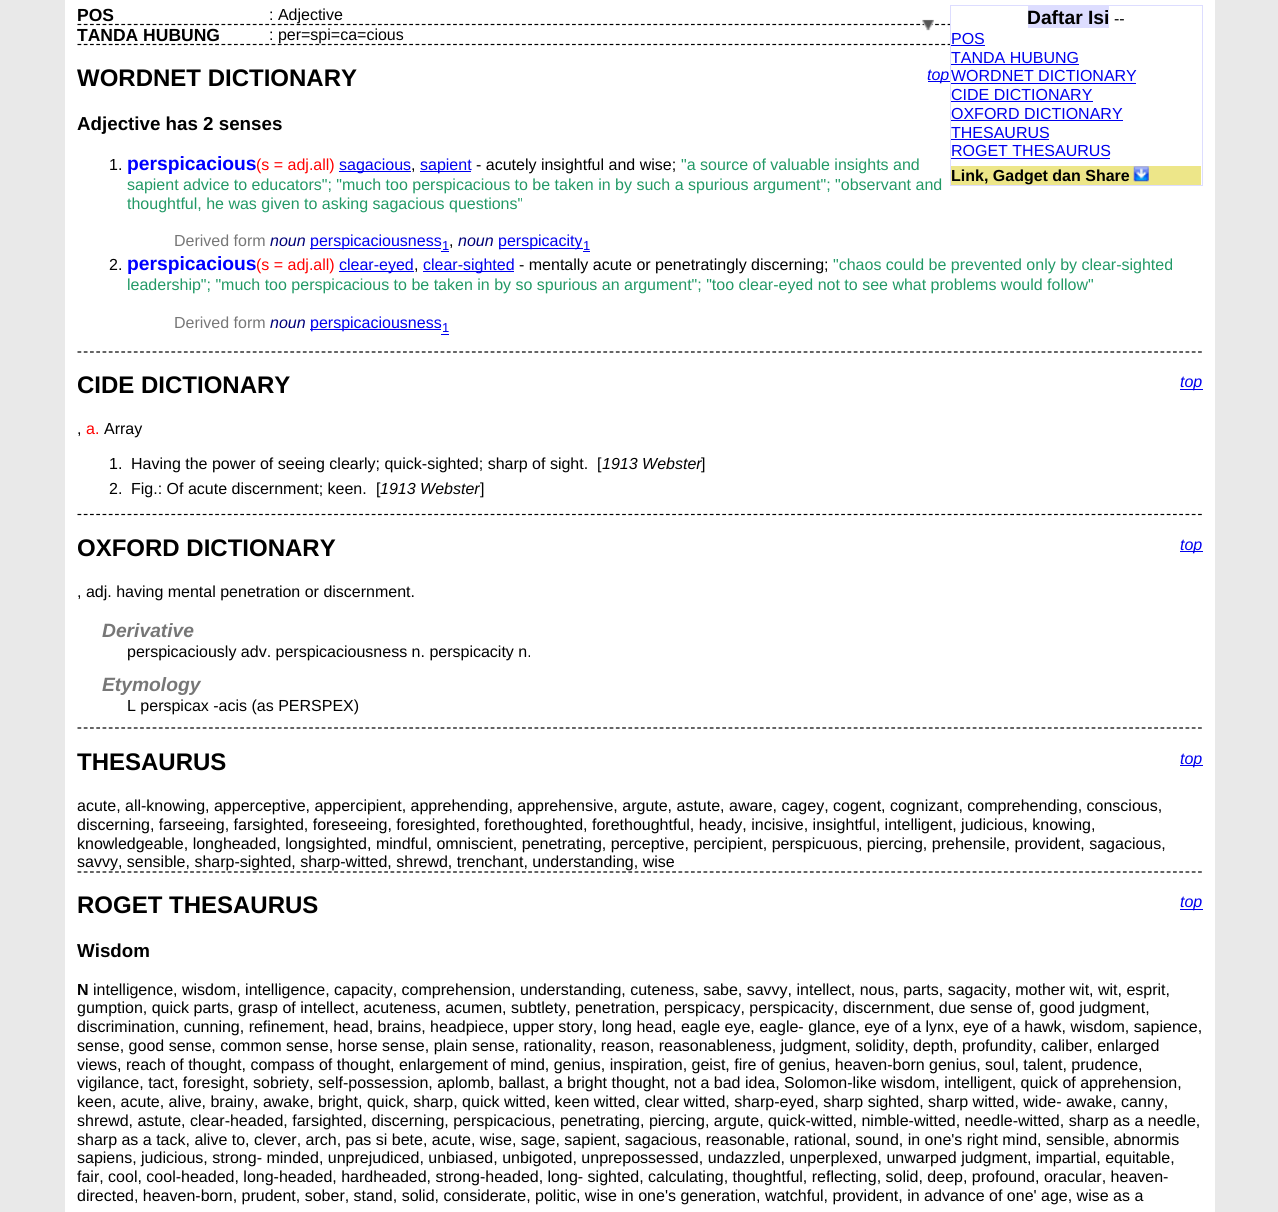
#include <cairo.h>
#include <math.h>
#include <stddef.h>

typedef struct { const char *family; double size; int italic, bold; unsigned color; } style_t;
static cairo_t *ctx;

static void ink(unsigned color) {
    cairo_set_source_rgb(ctx, (color >> 16) / 255.0, (color >> 8 & 255) / 255.0, (color & 255) / 255.0);
}

static void write(double x, double y, const char *s, const style_t *st) {
    cairo_select_font_face(ctx, st->family, st->italic ? CAIRO_FONT_SLANT_ITALIC : CAIRO_FONT_SLANT_NORMAL,
        st->bold ? CAIRO_FONT_WEIGHT_BOLD : CAIRO_FONT_WEIGHT_NORMAL);
    cairo_set_font_size(ctx, st->size);
    ink(st->color);
    cairo_move_to(ctx, x, y);
    cairo_show_text(ctx, s);
}

static void block(double x, double y, double w, double h, unsigned color) {
    ink(color);
    cairo_rectangle(ctx, x, y, w, h);
    cairo_fill(ctx);
}

static void paste(const char *path, double x, double y, double w, double h) {
    cairo_surface_t *image = cairo_image_surface_create_from_png(path);
    cairo_save(ctx);
    cairo_set_source_surface(ctx, image, x, y);
    cairo_rectangle(ctx, x, y, w, h);
    cairo_fill(ctx);
    cairo_restore(ctx);
    cairo_surface_destroy(image);
}

static const style_t s1 = {"Liberation Sans", 17.5, 0, 1, 0x000000};
static const style_t s2 = {"Liberation Sans", 16, 0, 0, 0x000000};
static const style_t s3 = {"Liberation Sans", 24, 0, 1, 0x000000};
static const style_t s4 = {"Liberation Sans", 16, 1, 0, 0x0000ee};
static const style_t s5 = {"Liberation Sans", 18.75, 0, 1, 0x000000};
static const style_t s6 = {"Liberation Sans", 19.25, 0, 1, 0x0000ff};
static const style_t s7 = {"Liberation Sans", 16, 0, 0, 0xff0000};
static const style_t s8 = {"Liberation Sans", 16, 0, 0, 0x0000ee};
static const style_t s9 = {"Liberation Sans", 16, 0, 0, 0x229966};
static const style_t s10 = {"Liberation Sans", 16, 0, 0, 0x777777};
static const style_t s11 = {"Liberation Sans", 16, 1, 0, 0x000077};
static const style_t s12 = {"Liberation Sans", 13, 0, 0, 0x0000ee};
static const style_t s13 = {"Liberation Sans", 16, 1, 0, 0x000000};
static const style_t s14 = {"Liberation Sans", 19.25, 1, 1, 0x777777};
static const style_t s15 = {"Liberation Sans", 16, 0, 1, 0x000000};
static const style_t s16 = {"Liberation Sans", 19.25, 0, 1, 0x000000};

int main(void) {
    cairo_surface_t *surface = cairo_image_surface_create(CAIRO_FORMAT_RGB24, 1278, 1212);
    ctx = cairo_create(surface);
    cairo_font_options_t *options = cairo_font_options_create();
    cairo_font_options_set_hint_metrics(options, CAIRO_HINT_METRICS_OFF);
    cairo_font_options_set_hint_style(options, CAIRO_HINT_STYLE_NONE);
    cairo_set_font_options(ctx, options);
    cairo_set_miter_limit(ctx, 4);
    ink(0xe9e9e9);
    cairo_paint(ctx);
    block(65, 0, 1150, 1212, 0xffffff);
    cairo_new_path(ctx);
    cairo_move_to(ctx, 77.5, 24.5);
    cairo_line_to(ctx, 1202.5, 24.5);
    ink(0x000000);
    cairo_set_line_width(ctx, 1.2);
    cairo_set_dash(ctx, (double[]){3.75, 2.51}, 2, 0);
    cairo_stroke(ctx);
    write(77, 21, "POS", &s1);
    write(269, 20, ": Adjective", &s2);
    cairo_new_path(ctx);
    cairo_move_to(ctx, 77.5, 44.5);
    cairo_line_to(ctx, 1202.5, 44.5);
    cairo_stroke(ctx);
    write(77, 41, "TANDA HUBUNG", &s1);
    write(269, 40, ": per=spi=ca=cious", &s2);
    cairo_new_path(ctx);
    cairo_move_to(ctx, 77.5, 352);
    cairo_line_to(ctx, 1202.5, 352);
    cairo_stroke(ctx);
    write(77, 86, "WORDNET DICTIONARY", &s3);
    block(928, 81, 22, 1, 0x0000ee);
    write(927, 80, "top", &s4);
    write(77, 130, "Adjective has 2 senses", &s5);
    write(109, 170, "1.", &s2);
    write(127, 170, "perspicacious", &s6);
    write(256, 170, "(s = adj.all)", &s7);
    block(339, 171, 72, 1, 0x0000ee);
    write(339, 170, "sagacious", &s8);
    block(420, 171, 51, 1, 0x0000ee);
    write(420, 170, "sapient", &s8);
    write(476, 170, "- acutely insightful and wise;", &s2);
    write(681, 170, "\"a source of valuable insights and", &s9);
    write(411, 170, ",", &s2);
    write(127, 190, "sapient advice to educators\"; \"much too perspicacious to be taken in by such a spurious argument\"; \"observant and", &s9);
    write(127, 209, "thoughtful, he was given to asking sagacious questions\"", &s9);
    write(174, 246, "Derived form", &s10);
    write(270, 246, "noun", &s11);
    block(310, 248, 131, 1, 0x0000ee);
    write(310, 246, "perspicaciousness", &s8);
    write(442, 250, "1", &s12);
    write(449, 246, ",", &s2);
    block(441, 251, 8, 1, 0x0000ee);
    write(458, 246, "noun", &s11);
    block(499, 248, 84, 1, 0x0000ee);
    write(498, 246, "perspicacity", &s8);
    write(583, 250, "1", &s12);
    block(583, 251, 7, 1, 0x0000ee);
    write(109, 270, "2.", &s2);
    write(127, 270, "perspicacious", &s6);
    write(256, 270, "(s = adj.all)", &s7);
    block(339, 271, 75, 1, 0x0000ee);
    write(339, 270, "clear-eyed", &s8);
    write(414, 270, ",", &s2);
    block(423, 271, 91, 1, 0x0000ee);
    write(423, 270, "clear-sighted", &s8);
    write(519, 270, "- mentally acute or penetratingly discerning;", &s2);
    write(833, 270, "\"chaos could be prevented only by clear-sighted", &s9);
    write(127, 290, "leadership\"; \"much too perspicacious to be taken in by so spurious an argument\"; \"too clear-eyed not to see what problems would follow\"", &s9);
    write(174, 328, "Derived form", &s10);
    write(270, 328, "noun", &s11);
    block(310, 329, 131, 1, 0x0000ee);
    write(310, 328, "perspicaciousness", &s8);
    write(442, 332, "1", &s12);
    block(441, 334, 8, 1, 0x0000ee);
    cairo_new_path(ctx);
    cairo_move_to(ctx, 77.5, 514.5);
    cairo_line_to(ctx, 1202.5, 514.5);
    ink(0x000000);
    cairo_stroke(ctx);
    write(77, 393, "CIDE DICTIONARY", &s3);
    block(1180, 389, 23, 1, 0x0000ee);
    write(1180, 387, "top", &s4);
    write(77, 434, ",", &s2);
    write(86, 434, "a.", &s7);
    write(104, 434, "Array", &s2);
    write(109, 469, "1.", &s2);
    write(131, 469, "Having the power of seeing clearly; quick-sighted; sharp of sight.", &s2);
    write(597, 469, "[", &s2);
    write(602, 469, "1913 Webster", &s13);
    write(701, 469, "]", &s2);
    write(109, 494, "2.", &s2);
    write(131, 494, "Fig.: Of acute discernment; keen.", &s2);
    write(376, 494, "[", &s2);
    write(380, 494, "1913 Webster", &s13);
    write(480, 494, "]", &s2);
    cairo_new_path(ctx);
    cairo_move_to(ctx, 77.5, 728);
    cairo_line_to(ctx, 1202.5, 728);
    cairo_stroke(ctx);
    write(77, 556, "OXFORD DICTIONARY", &s3);
    block(1180, 551, 23, 1, 0x0000ee);
    write(1180, 550, "top", &s4);
    write(77, 597, ", adj. having mental penetration or discernment.", &s2);
    write(102, 637, "Derivative", &s14);
    write(127, 657, "perspicaciously adv. perspicaciousness n. perspicacity n.", &s2);
    write(102, 691, "Etymology", &s14);
    write(127, 711, "L perspicax -acis (as PERSPEX)", &s2);
    cairo_new_path(ctx);
    cairo_move_to(ctx, 77.5, 872);
    cairo_line_to(ctx, 1202.5, 872);
    cairo_stroke(ctx);
    write(77, 770, "THESAURUS", &s3);
    block(1180, 765, 23, 1, 0x0000ee);
    write(1180, 764, "top", &s4);
    write(77, 811, "acute, all-knowing, apperceptive, appercipient, apprehending, apprehensive, argute, astute, aware, cagey, cogent, cognizant, comprehending, conscious,", &s2);
    write(77, 830, "discerning, farseeing, farsighted, foreseeing, foresighted, forethoughted, forethoughtful, heady, incisive, insightful, intelligent, judicious, knowing,", &s2);
    write(77, 849, "knowledgeable, longheaded, longsighted, mindful, omniscient, penetrating, perceptive, percipient, perspicuous, piercing, prehensile, provident, sagacious,", &s2);
    write(77, 867, "savvy, sensible, sharp-sighted, sharp-witted, shrewd, trenchant, understanding, wise", &s2);
    write(77, 913, "ROGET THESAURUS", &s3);
    block(1180, 909, 23, 1, 0x0000ee);
    write(1180, 907, "top", &s4);
    write(77, 957, "Wisdom", &s5);
    write(77, 995, "N", &s15);
    write(93, 995, "intelligence, wisdom, intelligence, capacity, comprehension, understanding, cuteness, sabe, savvy, intellect, nous, parts, sagacity, mother wit, wit, esprit,", &s2);
    write(77, 1013, "gumption, quick parts, grasp of intellect, acuteness, acumen, subtlety, penetration, perspicacy, perspicacity, discernment, due sense of, good judgment,", &s2);
    write(77, 1032, "discrimination, cunning, refinement, head, brains, headpiece, upper story, long head, eagle eye, eagle- glance, eye of a lynx, eye of a hawk, wisdom, sapience,", &s2);
    write(77, 1051, "sense, good sense, common sense, horse sense, plain sense, rationality, reason, reasonableness, judgment, solidity, depth, profundity, caliber, enlarged", &s2);
    write(77, 1070, "views, reach of thought, compass of thought, enlargement of mind, genius, inspiration, geist, fire of genius, heaven-born genius, soul, talent, prudence,", &s2);
    write(77, 1088, "vigilance, tact, foresight, sobriety, self-possession, aplomb, ballast, a bright thought, not a bad idea, Solomon-like wisdom, intelligent, quick of apprehension,", &s2);
    write(77, 1107, "keen, acute, alive, brainy, awake, bright, quick, sharp, quick witted, keen witted, clear witted, sharp-eyed, sharp sighted, sharp witted, wide- awake, canny,", &s2);
    write(77, 1126, "shrewd, astute, clear-headed, farsighted, discerning, perspicacious, penetrating, piercing, argute, quick-witted, nimble-witted, needle-witted, sharp as a needle,", &s2);
    write(77, 1145, "sharp as a tack, alive to, clever, arch, pas si bete, acute, wise, sage, sapient, sagacious, reasonable, rational, sound, in one's right mind, sensible, abnormis", &s2);
    write(77, 1163, "sapiens, judicious, strong- minded, unprejudiced, unbiased, unbigoted, unprepossessed, undazzled, unperplexed, unwarped judgment, impartial, equitable,", &s2);
    write(77, 1182, "fair, cool, cool-headed, long-headed, hardheaded, strong-headed, long- sighted, calculating, thoughtful, reflecting, solid, deep, profound, oracular, heaven-", &s2);
    write(77, 1201, "directed, heaven-born, prudent, sober, stand, solid, considerate, politic, wise in one's generation, watchful, provident, in advance of one' age, wise as a", &s2);
    paste("pic1.png", 922, 19, 12, 12);
    block(951, 23, 251, 23, 0xffffff);
    cairo_rectangle(ctx, 950.5, 5.5, 252, 180);
    ink(0xddddff);
    cairo_set_line_width(ctx, 1);
    cairo_set_dash(ctx, NULL, 0, 0);
    cairo_stroke(ctx);
    block(1028, 6, 81, 22, 0xddddff);
    write(1027, 24, "Daftar Isi", &s16);
    write(1114, 24, "--", &s2);
    write(951, 44, "POS", &s8);
    block(951, 45, 34, 1, 0x0000ee);
    write(951, 63, "TANDA HUBUNG", &s8);
    block(951, 64, 128, 1, 0x0000ee);
    write(951, 81, "WORDNET DICTIONARY", &s8);
    block(951, 83, 185, 1, 0x0000ee);
    write(951, 100, "CIDE DICTIONARY", &s8);
    block(951, 101, 142, 1, 0x0000ee);
    write(951, 119, "OXFORD DICTIONARY", &s8);
    block(951, 120, 172, 1, 0x0000ee);
    write(951, 138, "THESAURUS", &s8);
    block(951, 139, 98, 1, 0x0000ee);
    write(951, 156, "ROGET THESAURUS", &s8);
    block(951, 158, 159, 1, 0x0000ee);
    block(951, 166, 250, 19, 0xede689);
    write(951, 181, "Link, Gadget dan Share", &s15);
    paste("pic2.png", 1133, 166, 16, 16);
    cairo_surface_write_to_png(surface, "screenshot.png");
    cairo_font_options_destroy(options);
    cairo_destroy(ctx);
    cairo_surface_destroy(surface);
    return 0;
}
